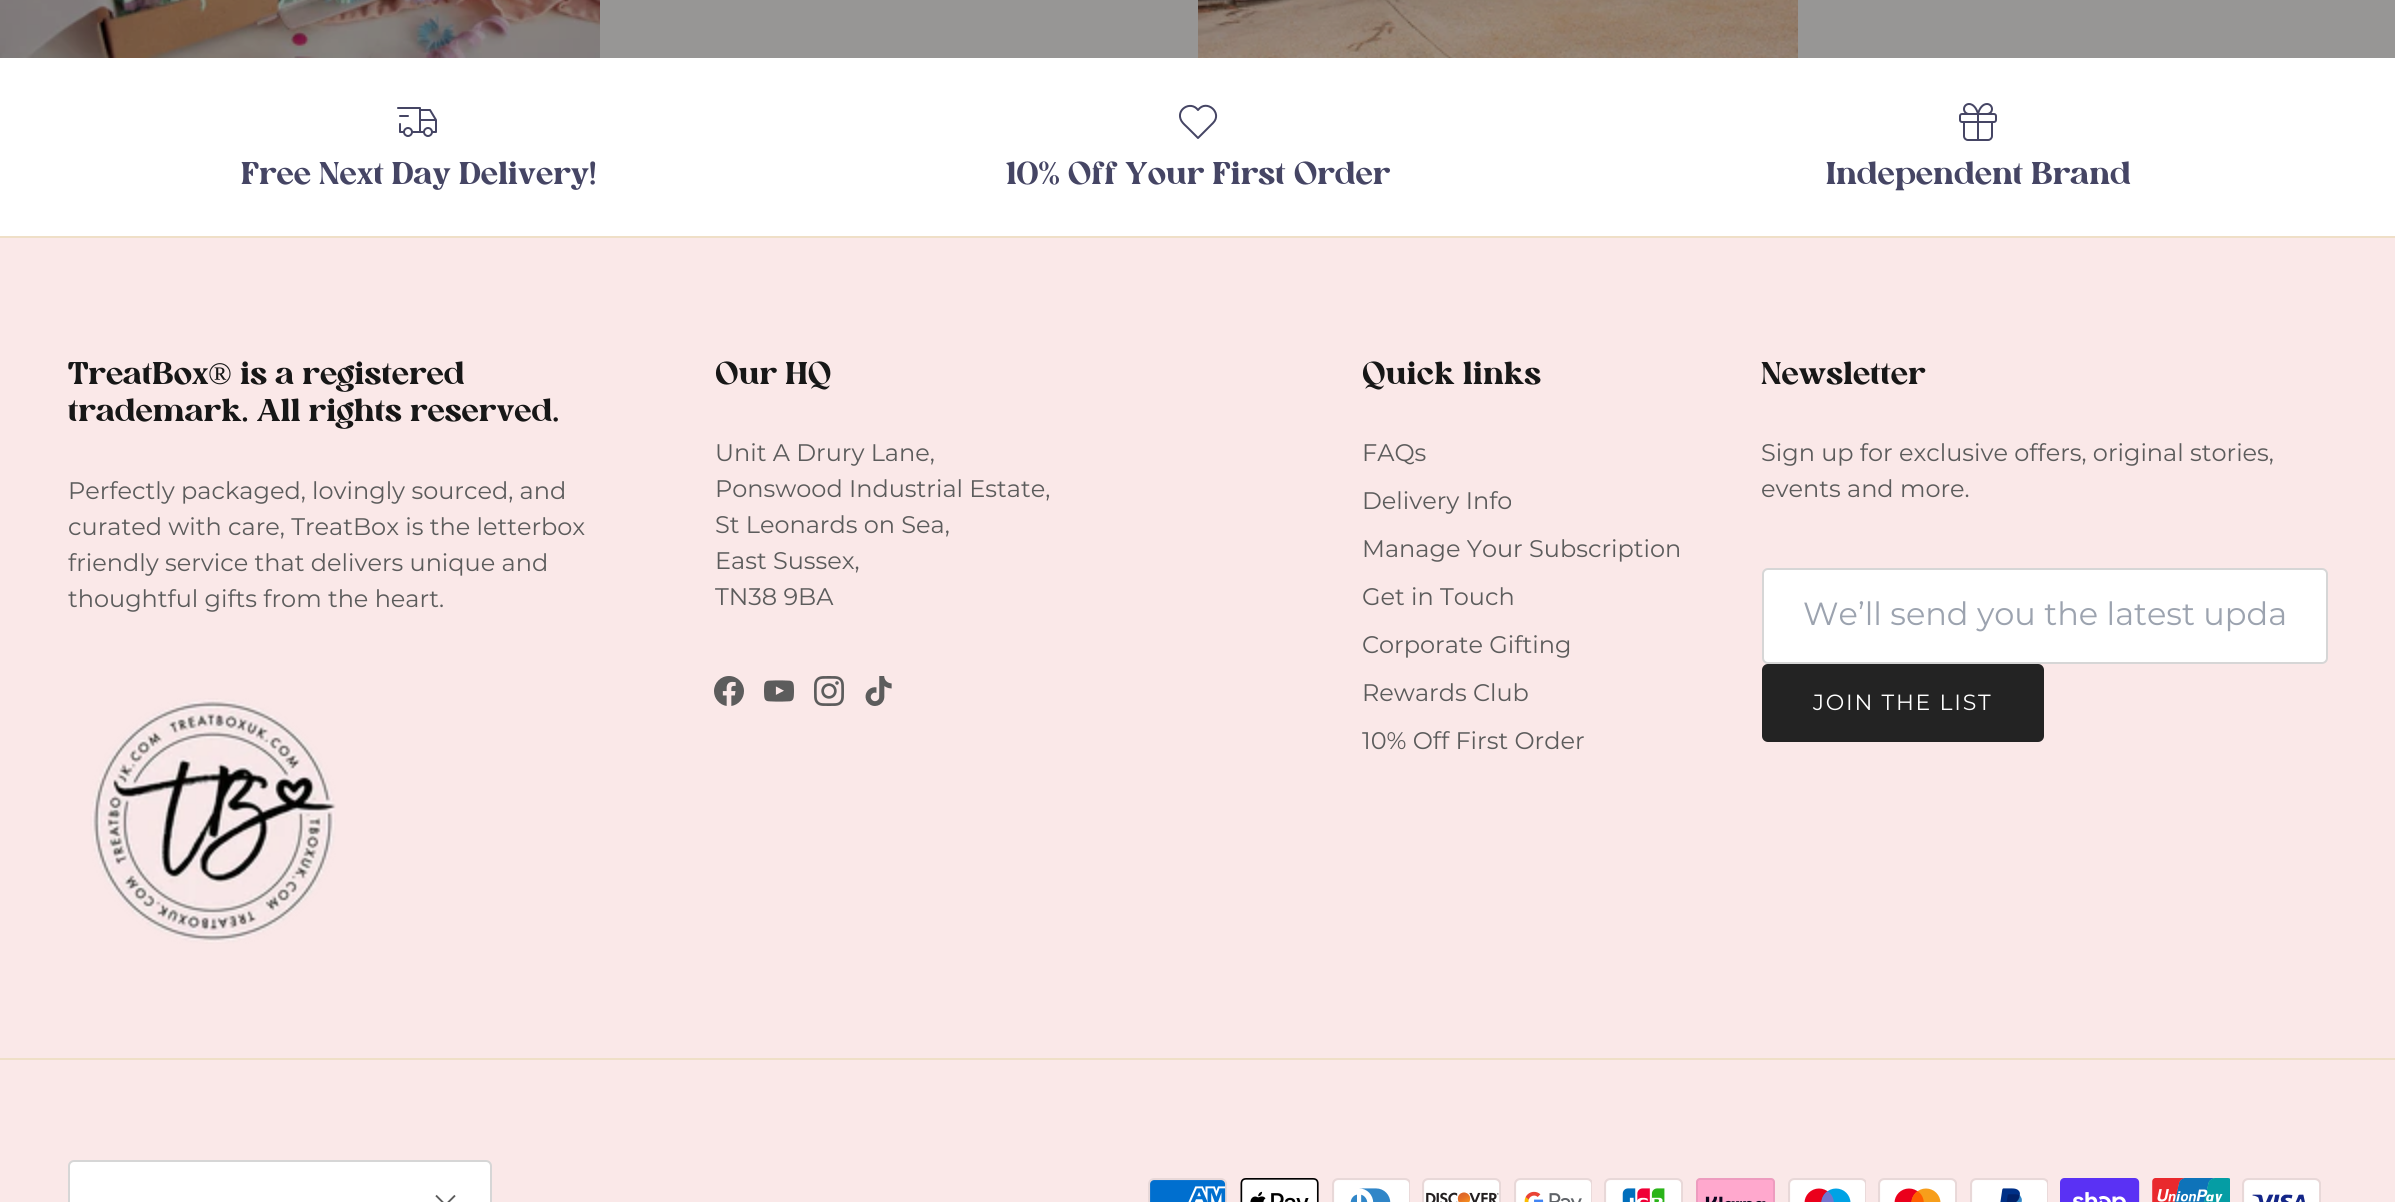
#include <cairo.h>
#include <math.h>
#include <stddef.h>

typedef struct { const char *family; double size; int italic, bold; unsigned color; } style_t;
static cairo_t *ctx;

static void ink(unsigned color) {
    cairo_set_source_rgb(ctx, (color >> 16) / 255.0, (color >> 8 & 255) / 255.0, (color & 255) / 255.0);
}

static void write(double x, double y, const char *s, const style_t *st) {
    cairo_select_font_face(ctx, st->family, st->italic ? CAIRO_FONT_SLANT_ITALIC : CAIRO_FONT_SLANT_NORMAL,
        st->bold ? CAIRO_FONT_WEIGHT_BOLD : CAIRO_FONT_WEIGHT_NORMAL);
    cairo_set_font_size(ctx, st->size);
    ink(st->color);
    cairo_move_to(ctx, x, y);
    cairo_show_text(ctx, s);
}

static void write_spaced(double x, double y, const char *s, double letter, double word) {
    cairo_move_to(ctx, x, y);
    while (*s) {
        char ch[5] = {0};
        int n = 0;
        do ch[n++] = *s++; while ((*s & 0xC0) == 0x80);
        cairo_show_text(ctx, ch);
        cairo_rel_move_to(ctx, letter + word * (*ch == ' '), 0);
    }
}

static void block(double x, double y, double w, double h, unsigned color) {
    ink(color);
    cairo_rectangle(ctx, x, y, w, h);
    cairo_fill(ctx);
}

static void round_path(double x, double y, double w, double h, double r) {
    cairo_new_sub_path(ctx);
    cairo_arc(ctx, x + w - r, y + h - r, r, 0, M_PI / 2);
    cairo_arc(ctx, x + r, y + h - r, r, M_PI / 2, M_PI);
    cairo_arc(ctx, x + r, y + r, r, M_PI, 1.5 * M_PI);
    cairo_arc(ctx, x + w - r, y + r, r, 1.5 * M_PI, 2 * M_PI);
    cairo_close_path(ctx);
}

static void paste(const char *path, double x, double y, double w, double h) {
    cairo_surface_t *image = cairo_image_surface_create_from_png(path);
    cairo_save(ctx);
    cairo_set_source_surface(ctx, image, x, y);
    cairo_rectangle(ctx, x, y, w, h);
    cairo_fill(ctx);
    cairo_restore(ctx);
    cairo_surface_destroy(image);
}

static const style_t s1 = {"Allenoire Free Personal", 31.4, 0, 0, 0x454564};
static const style_t s2 = {"Allenoire Free Personal", 31.4, 0, 0, 0x171717};
static const style_t s3 = {"Liberation Serif", 31.4, 0, 0, 0x171717};
static const style_t s4 = {"Montserrat", 24, 0, 0, 0x5c5c5c};
static const style_t s5 = {"Montserrat", 32, 0, 0, 0x9ca3af};

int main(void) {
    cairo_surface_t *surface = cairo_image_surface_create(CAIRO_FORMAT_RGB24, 2395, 1202);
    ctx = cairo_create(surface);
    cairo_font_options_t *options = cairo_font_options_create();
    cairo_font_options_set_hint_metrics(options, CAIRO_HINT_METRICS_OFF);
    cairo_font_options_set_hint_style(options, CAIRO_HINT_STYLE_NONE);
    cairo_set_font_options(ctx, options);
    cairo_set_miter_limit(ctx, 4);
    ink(0xffffff);
    cairo_paint(ctx);
    paste("pic1.png", 0, 0, 600, 58);
    block(600, 0, 598, 58, 0x979695);
    paste("pic2.png", 1198, 0, 600, 58);
    block(1798, 0, 597, 58, 0x979695);
    paste("pic3.png", 397, 107, 40, 30);
    write(241, 184, "Free Next Day Delivery!", &s1);
    cairo_new_path(ctx);
    cairo_move_to(ctx, 1213, 123);
    cairo_line_to(ctx, 1198, 138);
    cairo_line_to(ctx, 1188, 128);
    cairo_curve_to(ctx, 1186, 126, 1183, 123.5, 1181.5, 121);
    cairo_curve_to(ctx, 1175, 110, 1190.5, 100, 1198, 110);
    cairo_curve_to(ctx, 1206.5, 98.5, 1223, 113, 1213, 123);
    cairo_set_line_cap(ctx, CAIRO_LINE_CAP_ROUND);
    cairo_set_line_join(ctx, CAIRO_LINE_JOIN_ROUND);
    cairo_stroke(ctx);
    write(1006, 184, "10% Off Your First Order", &s1);
    paste("pic4.png", 1959, 103, 38, 38);
    write(1826, 184, "Independent Brand", &s1);
    block(0, 238, 2395, 964, 0xfae8e8);
    block(0, 236, 2395, 2, 0xefdfc7);
    write(68, 384, "TreatBox", &s2);
    write(208, 384, "®", &s3);
    write(240, 384, "is a registered", &s2);
    write(68, 421, "trademark. All rights reserved.", &s2);
    write(68, 499, "Perfectly packaged, lovingly sourced, and", &s4);
    write(68, 535, "curated with care, TreatBox is the letterbox", &s4);
    write(68, 571, "friendly service that delivers unique and", &s4);
    write(68, 607, "thoughtful gifts from the heart.", &s4);
    paste("pic5.png", 90, 698, 246, 246);
    write(715, 384, "Our HQ", &s2);
    write(715, 461, "Unit A Drury Lane,", &s4);
    write(715, 497, "Ponswood Industrial Estate,", &s4);
    write(715, 533, "St Leonards on Sea,", &s4);
    write(715, 569, "East Sussex,", &s4);
    write(715, 605, "TN38 9BA", &s4);
    paste("pic6.png", 714, 676, 30, 30);
    paste("pic7.png", 764, 680, 30, 22);
    paste("pic8.png", 814, 676, 30, 30);
    paste("pic9.png", 865, 676, 27, 30);
    write(1362, 384, "Quick links", &s2);
    write(1362, 461, "FAQs", &s4);
    write(1362, 509, "Delivery Info", &s4);
    write(1362, 557, "Manage Your Subscription", &s4);
    write(1362, 605, "Get in Touch", &s4);
    write(1362, 653, "Corporate Gifting", &s4);
    write(1362, 701, "Rewards Club", &s4);
    write(1362, 749, "10% Off First Order", &s4);
    write(1761, 384, "Newsletter", &s2);
    write(1761, 461, "Sign up for exclusive offers, original stories,", &s4);
    write(1761, 497, "events and more.", &s4);
    ink(0xffffff);
    round_path(1763, 569, 564, 94, 5);
    cairo_fill_preserve(ctx);
    ink(0xd6d6d6);
    cairo_set_line_cap(ctx, CAIRO_LINE_CAP_BUTT);
    cairo_set_line_join(ctx, CAIRO_LINE_JOIN_MITER);
    cairo_stroke(ctx);
    write(1803, 625, "We’ll send you the latest upda", &s5);
    ink(0x232323);
    round_path(1763, 665, 280, 76, 5);
    cairo_fill_preserve(ctx);
    cairo_stroke(ctx);
    cairo_set_font_size(ctx, 22);
    ink(0xffffff);
    write_spaced(1813, 710, "JOIN THE LIST", 1.75, 0);
    block(0, 1058, 2395, 2, 0xefdfc7);
    ink(0xffffff);
    round_path(69, 1161, 422, 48, 5);
    cairo_fill_preserve(ctx);
    ink(0xd6d6d6);
    cairo_stroke(ctx);
    cairo_new_path(ctx);
    cairo_move_to(ctx, 455, 1195.5);
    cairo_line_to(ctx, 445.5, 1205);
    cairo_line_to(ctx, 436, 1195.5);
    ink(0x5c5c5c);
    cairo_set_line_width(ctx, 1.9);
    cairo_stroke(ctx);
    paste("pic10.png", 1148, 1178, 79, 24);
    paste("pic11.png", 1240, 1178, 79, 24);
    paste("pic12.png", 1332, 1178, 78, 24);
    paste("pic13.png", 1422, 1178, 79, 24);
    paste("pic14.png", 1514, 1178, 78, 24);
    paste("pic15.png", 1604, 1178, 79, 24);
    paste("pic16.png", 1696, 1178, 79, 24);
    paste("pic17.png", 1788, 1178, 78, 24);
    paste("pic18.png", 1878, 1178, 79, 24);
    paste("pic19.png", 1970, 1178, 78, 24);
    paste("pic20.png", 2060, 1178, 80, 24);
    paste("pic21.png", 2152, 1178, 78, 24);
    paste("pic22.png", 2242, 1178, 79, 24);
    cairo_surface_write_to_png(surface, "screenshot.png");
    cairo_font_options_destroy(options);
    cairo_destroy(ctx);
    cairo_surface_destroy(surface);
    return 0;
}
